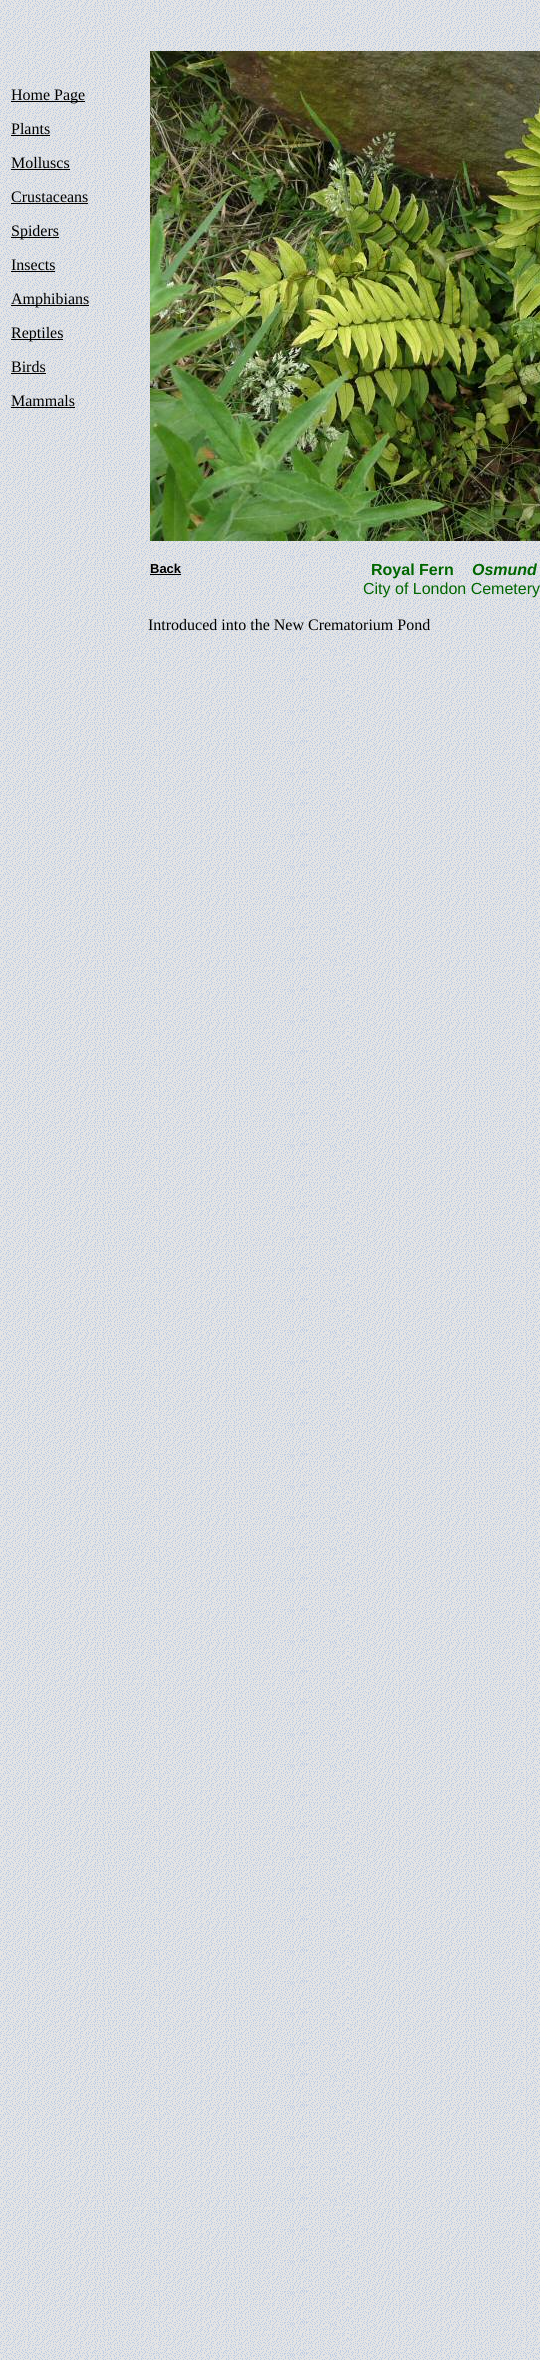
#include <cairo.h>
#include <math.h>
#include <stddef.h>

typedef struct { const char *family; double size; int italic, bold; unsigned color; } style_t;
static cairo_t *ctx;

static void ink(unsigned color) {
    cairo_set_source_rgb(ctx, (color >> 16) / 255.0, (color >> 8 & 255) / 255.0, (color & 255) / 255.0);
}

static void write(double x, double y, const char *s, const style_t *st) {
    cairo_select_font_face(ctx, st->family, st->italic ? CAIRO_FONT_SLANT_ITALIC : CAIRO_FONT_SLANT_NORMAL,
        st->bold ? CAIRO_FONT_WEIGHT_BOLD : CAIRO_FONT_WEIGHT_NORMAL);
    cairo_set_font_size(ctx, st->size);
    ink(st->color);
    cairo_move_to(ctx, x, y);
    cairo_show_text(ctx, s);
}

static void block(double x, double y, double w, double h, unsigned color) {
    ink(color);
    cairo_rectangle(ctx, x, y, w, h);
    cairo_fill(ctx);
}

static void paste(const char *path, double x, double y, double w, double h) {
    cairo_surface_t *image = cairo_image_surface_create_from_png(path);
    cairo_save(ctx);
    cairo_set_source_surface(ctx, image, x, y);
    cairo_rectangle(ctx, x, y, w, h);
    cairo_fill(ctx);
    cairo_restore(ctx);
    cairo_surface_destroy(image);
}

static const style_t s1 = {"Liberation Serif", 16, 0, 0, 0x000000};
static const style_t s2 = {"Liberation Sans", 13, 0, 1, 0x000000};
static const style_t s3 = {"Liberation Sans", 16, 0, 1, 0x006600};
static const style_t s4 = {"Liberation Sans", 16, 1, 1, 0x006600};
static const style_t s5 = {"Liberation Sans", 16, 0, 0, 0x006600};

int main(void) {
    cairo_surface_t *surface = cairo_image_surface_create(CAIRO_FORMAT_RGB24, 540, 2360);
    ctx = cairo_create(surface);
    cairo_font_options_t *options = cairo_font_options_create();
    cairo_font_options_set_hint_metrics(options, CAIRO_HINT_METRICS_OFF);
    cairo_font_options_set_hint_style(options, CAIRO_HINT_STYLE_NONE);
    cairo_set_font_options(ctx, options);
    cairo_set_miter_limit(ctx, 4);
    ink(0xffffff);
    cairo_paint(ctx);
    paste("pic1.png", 0, 0, 540, 2360);
    block(11, 101, 74, 1, 0x000000);
    write(11, 100, "Home Page", &s1);
    write(11, 134, "Plants", &s1);
    block(11, 135, 39, 1, 0x000000);
    write(11, 168, "Molluscs", &s1);
    block(11, 169, 59, 1, 0x000000);
    write(11, 202, "Crustaceans", &s1);
    block(11, 203, 77, 1, 0x000000);
    block(11, 237, 48, 1, 0x000000);
    write(11, 236, "Spiders", &s1);
    write(11, 270, "Insects", &s1);
    block(11, 271, 44, 1, 0x000000);
    block(11, 305, 78, 1, 0x000000);
    write(11, 304, "Amphibians", &s1);
    block(11, 339, 52, 1, 0x000000);
    write(11, 338, "Reptiles", &s1);
    write(11, 372, "Birds", &s1);
    block(11, 373, 35, 1, 0x000000);
    write(11, 406, "Mammals", &s1);
    block(11, 407, 64, 1, 0x000000);
    paste("pic2.png", 150, 51, 390, 490);
    write(150, 573, "Back", &s2);
    block(150, 574, 31, 1, 0x000000);
    write(371, 575, "Royal Fern", &s3);
    write(472, 575, "Osmund", &s4);
    write(363, 594, "City of London Cemetery", &s5);
    write(148, 630, "Introduced into the New Crematorium Pond", &s1);
    cairo_surface_write_to_png(surface, "screenshot.png");
    cairo_font_options_destroy(options);
    cairo_destroy(ctx);
    cairo_surface_destroy(surface);
    return 0;
}
